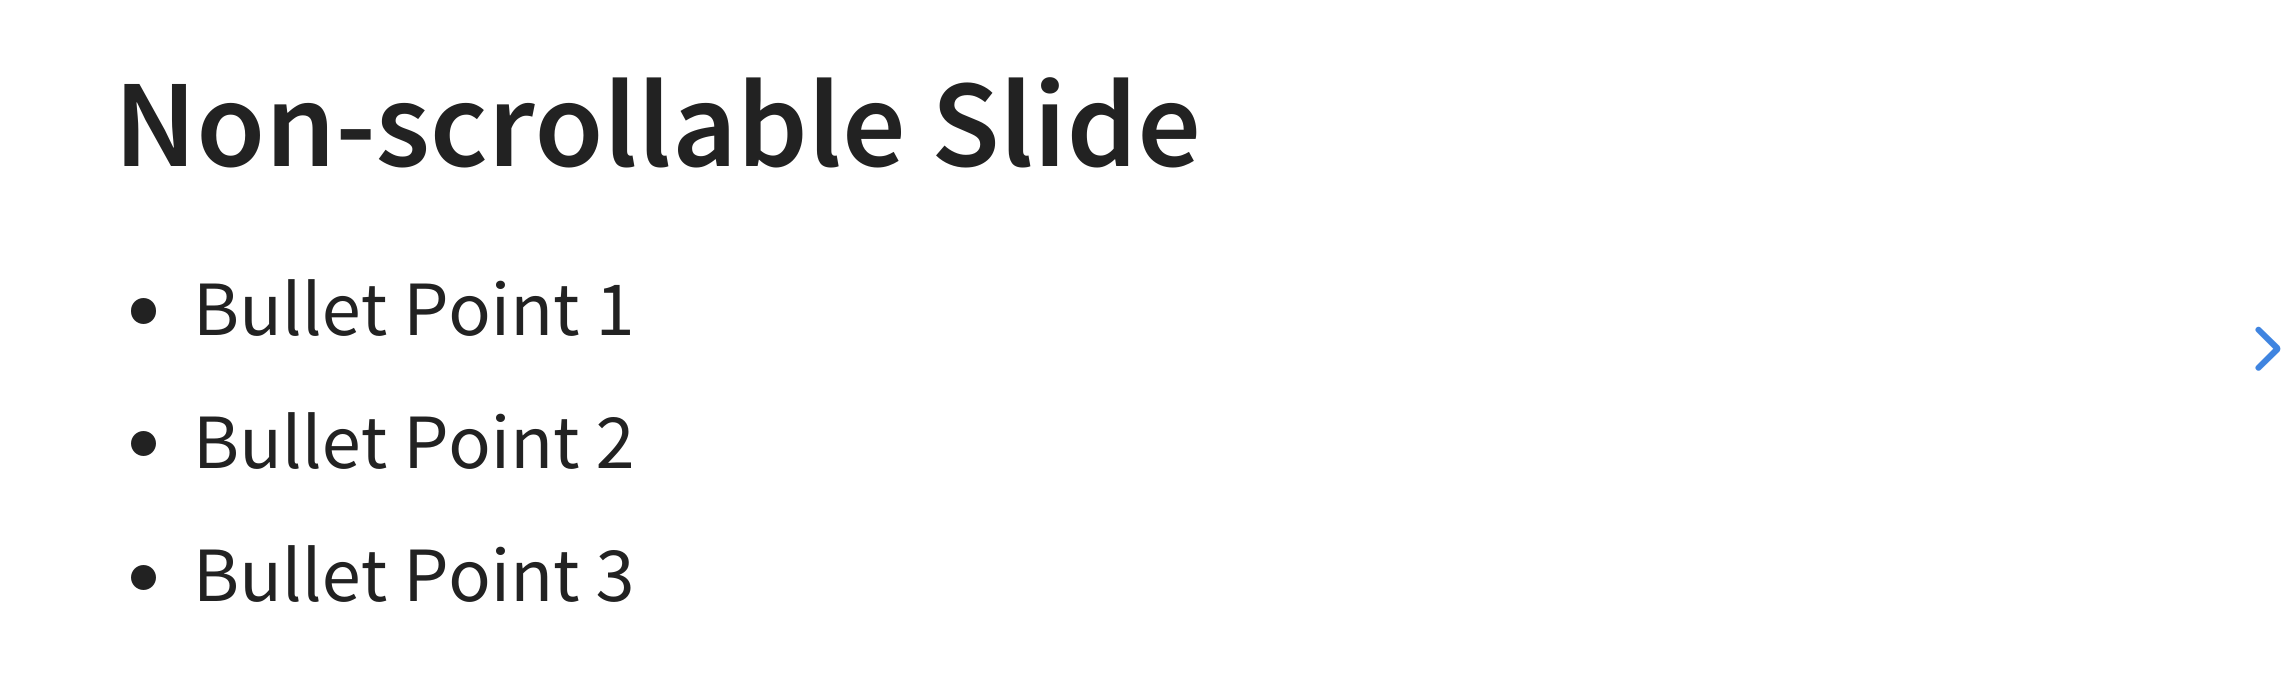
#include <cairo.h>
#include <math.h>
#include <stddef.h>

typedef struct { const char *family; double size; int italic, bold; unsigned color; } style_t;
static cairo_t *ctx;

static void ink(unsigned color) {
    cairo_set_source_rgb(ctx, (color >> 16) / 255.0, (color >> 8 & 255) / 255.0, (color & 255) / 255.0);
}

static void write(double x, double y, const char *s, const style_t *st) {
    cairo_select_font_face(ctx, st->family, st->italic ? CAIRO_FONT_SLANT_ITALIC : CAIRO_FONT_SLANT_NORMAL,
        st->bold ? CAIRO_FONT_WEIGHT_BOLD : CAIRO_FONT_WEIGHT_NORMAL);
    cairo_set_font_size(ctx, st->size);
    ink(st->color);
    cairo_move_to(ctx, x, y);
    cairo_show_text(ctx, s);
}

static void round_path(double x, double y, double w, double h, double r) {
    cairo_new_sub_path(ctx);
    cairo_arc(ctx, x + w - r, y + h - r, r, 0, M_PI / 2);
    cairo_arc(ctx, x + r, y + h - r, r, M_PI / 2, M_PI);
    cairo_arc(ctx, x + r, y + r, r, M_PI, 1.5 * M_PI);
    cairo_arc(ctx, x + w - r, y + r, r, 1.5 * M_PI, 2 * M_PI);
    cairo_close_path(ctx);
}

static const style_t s1 = {"Source Sans Pro SemiBold", 125.5, 0, 0, 0x222222};
static const style_t s2 = {"Source Sans Pro", 78.5, 0, 0, 0x222222};

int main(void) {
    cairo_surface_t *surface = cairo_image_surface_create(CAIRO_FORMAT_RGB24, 2288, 697);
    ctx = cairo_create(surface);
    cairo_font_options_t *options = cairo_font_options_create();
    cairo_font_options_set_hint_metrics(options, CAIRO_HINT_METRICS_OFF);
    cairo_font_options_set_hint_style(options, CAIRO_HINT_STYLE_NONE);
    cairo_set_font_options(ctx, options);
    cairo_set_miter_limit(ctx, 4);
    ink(0xffffff);
    cairo_paint(ctx);
    write(114, 166, "Non-scrollable Slide", &s1);
    round_path(131, 298, 25, 26, 12.5);
    cairo_fill(ctx);
    write(193, 335, "Bullet Point 1", &s2);
    cairo_new_path(ctx);
    cairo_arc(ctx, 143.5, 443.5, 12.5, 0, 2 * M_PI);
    cairo_fill(ctx);
    write(193, 468, "Bullet Point 2", &s2);
    cairo_new_path(ctx);
    cairo_arc(ctx, 143.5, 577.5, 12.5, 0, 2 * M_PI);
    cairo_fill(ctx);
    write(193, 601, "Bullet Point 3", &s2);
    ink(0x3f84e0);
    cairo_new_path(ctx);
    cairo_move_to(ctx, 2275, 350.5);
    cairo_line_to(ctx, 2256.5, 332);
    cairo_curve_to(ctx, 2255, 330.5, 2255, 329, 2256.5, 327.5);
    cairo_curve_to(ctx, 2257.5, 326.5, 2259.5, 326.5, 2260.5, 327.5);
    cairo_line_to(ctx, 2279.5, 346);
    cairo_curve_to(ctx, 2280.5, 347.5, 2280.5, 349.5, 2279.5, 350.5);
    cairo_curve_to(ctx, 2278, 351.5, 2276, 351.5, 2275, 350.5);
    cairo_close_path(ctx);
    cairo_fill(ctx);
    cairo_new_path(ctx);
    cairo_move_to(ctx, 2279.5, 351.5);
    cairo_line_to(ctx, 2260.5, 370);
    cairo_curve_to(ctx, 2259.5, 371, 2257.5, 371, 2256.5, 370);
    cairo_curve_to(ctx, 2255, 368.5, 2255, 367, 2256.5, 365.5);
    cairo_line_to(ctx, 2275, 347);
    cairo_curve_to(ctx, 2276, 346, 2278, 346, 2279.5, 347);
    cairo_curve_to(ctx, 2280.5, 348, 2280.5, 350, 2279.5, 351.5);
    cairo_close_path(ctx);
    cairo_fill(ctx);
    cairo_surface_write_to_png(surface, "screenshot.png");
    cairo_font_options_destroy(options);
    cairo_destroy(ctx);
    cairo_surface_destroy(surface);
    return 0;
}
